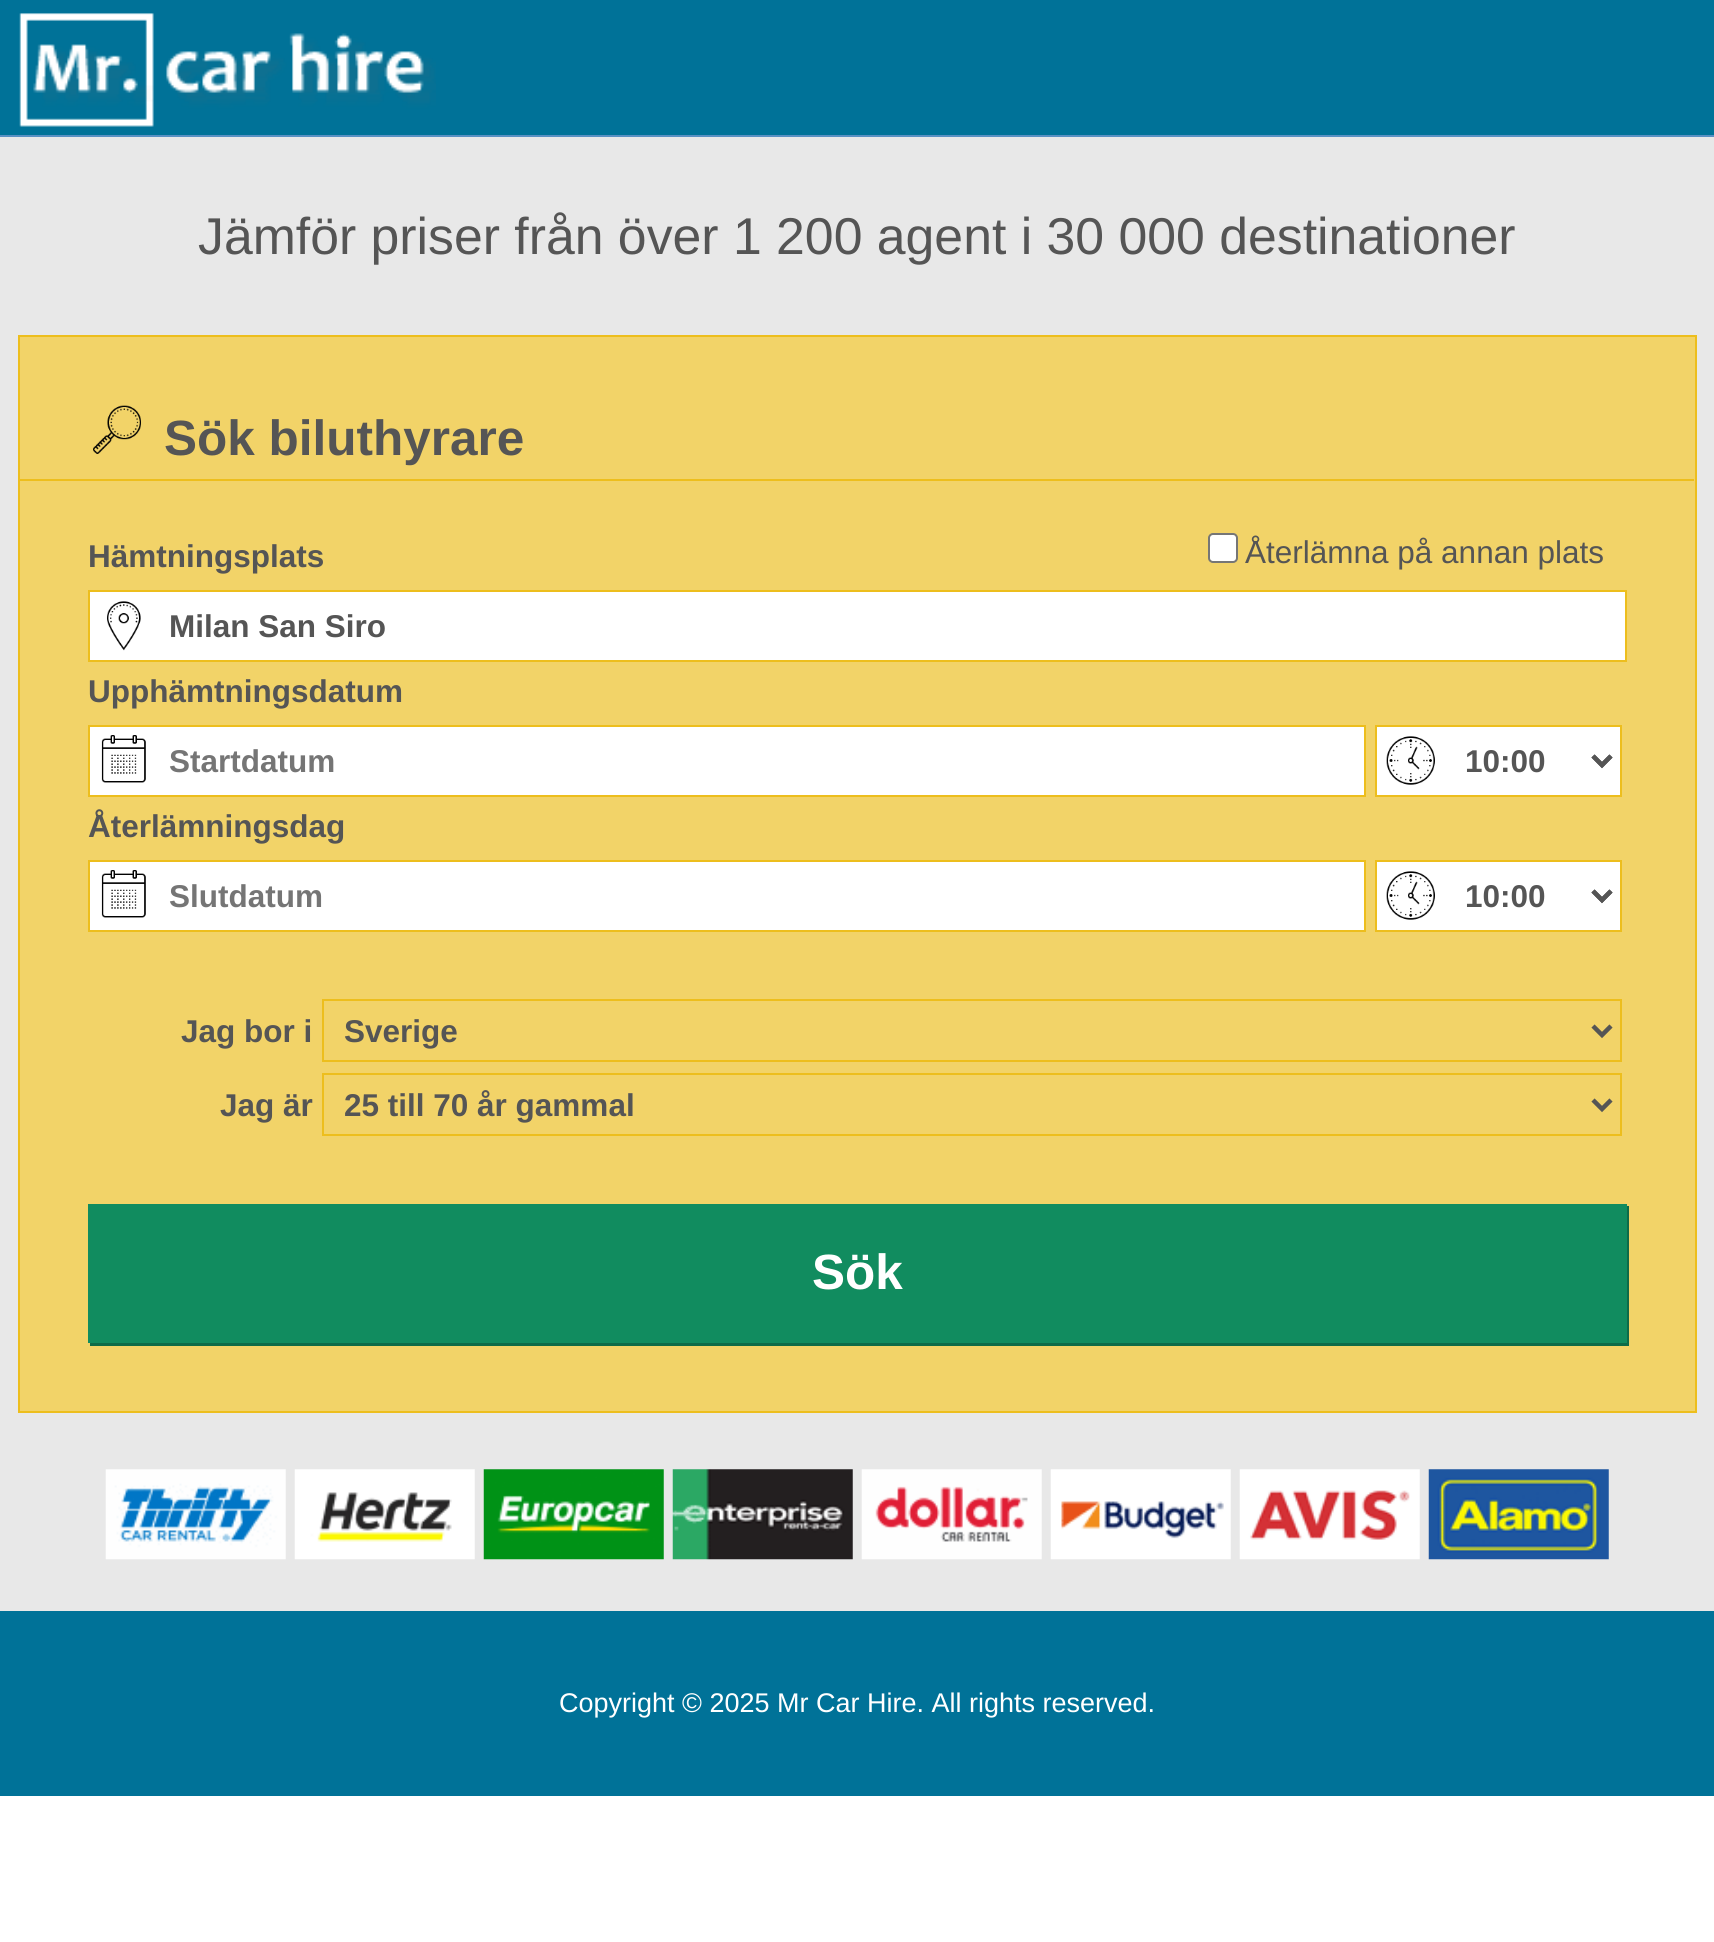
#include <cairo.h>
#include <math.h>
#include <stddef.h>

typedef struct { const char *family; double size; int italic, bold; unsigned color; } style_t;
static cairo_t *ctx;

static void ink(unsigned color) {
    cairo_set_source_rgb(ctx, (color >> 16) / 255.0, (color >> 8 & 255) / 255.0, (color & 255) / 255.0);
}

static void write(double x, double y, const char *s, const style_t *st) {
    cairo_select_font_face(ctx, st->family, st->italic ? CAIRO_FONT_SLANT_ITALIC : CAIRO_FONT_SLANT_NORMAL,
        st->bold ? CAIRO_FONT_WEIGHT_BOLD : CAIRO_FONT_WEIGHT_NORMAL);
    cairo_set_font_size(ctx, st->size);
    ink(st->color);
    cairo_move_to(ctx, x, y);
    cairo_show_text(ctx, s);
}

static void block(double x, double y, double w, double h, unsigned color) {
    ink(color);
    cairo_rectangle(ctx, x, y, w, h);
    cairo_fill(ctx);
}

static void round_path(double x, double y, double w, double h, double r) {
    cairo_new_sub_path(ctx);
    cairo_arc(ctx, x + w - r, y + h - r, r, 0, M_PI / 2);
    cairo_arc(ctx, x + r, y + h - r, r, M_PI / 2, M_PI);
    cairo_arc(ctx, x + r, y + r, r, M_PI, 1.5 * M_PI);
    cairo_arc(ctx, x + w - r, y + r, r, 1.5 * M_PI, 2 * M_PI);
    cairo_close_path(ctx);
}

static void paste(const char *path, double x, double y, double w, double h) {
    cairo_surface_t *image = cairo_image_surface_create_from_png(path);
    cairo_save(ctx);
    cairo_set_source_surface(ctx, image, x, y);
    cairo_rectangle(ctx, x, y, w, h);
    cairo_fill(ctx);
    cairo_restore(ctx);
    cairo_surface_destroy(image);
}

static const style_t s1 = {"Liberation Sans", 51.75, 0, 0, 0x555555};
static const style_t s2 = {"Liberation Sans", 49.5, 0, 1, 0x555555};
static const style_t s3 = {"Liberation Sans", 31.5, 0, 0, 0x555555};
static const style_t s4 = {"Liberation Sans", 31.5, 0, 1, 0x555555};
static const style_t s5 = {"Liberation Sans", 31.5, 0, 1, 0x757575};
static const style_t s6 = {"Liberation Sans", 49.5, 0, 1, 0xffffff};
static const style_t s7 = {"Liberation Sans", 27, 0, 0, 0xffffff};

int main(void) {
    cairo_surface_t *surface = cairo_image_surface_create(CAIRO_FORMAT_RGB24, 1714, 1942);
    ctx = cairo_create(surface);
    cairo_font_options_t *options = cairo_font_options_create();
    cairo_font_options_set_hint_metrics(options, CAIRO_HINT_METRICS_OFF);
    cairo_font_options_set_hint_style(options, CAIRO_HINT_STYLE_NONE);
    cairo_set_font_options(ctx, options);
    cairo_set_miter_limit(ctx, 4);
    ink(0xffffff);
    cairo_paint(ctx);
    block(0, 0, 1714, 135, 0x007298);
    block(0, 135, 1714, 2, 0x5890c3);
    paste("pic1.png", 19, 13, 417, 114);
    block(0, 137, 1714, 1474, 0xe8e8e8);
    write(198, 254, "Jämför priser från över 1 200 agent i 30 000 destinationer", &s1);
    ink(0xf2d368);
    cairo_rectangle(ctx, 19, 336, 1677, 1076);
    cairo_fill_preserve(ctx);
    ink(0xedbe1d);
    cairo_stroke(ctx);
    paste("pic2.png", 93, 405, 48, 49);
    block(20, 479, 1674, 2, 0xedbe1d);
    write(164, 455, "Sök biluthyrare", &s2);
    ink(0xffffff);
    round_path(1209, 534, 28, 28, 4);
    cairo_fill_preserve(ctx);
    ink(0x767676);
    cairo_stroke(ctx);
    write(1245, 563, "Återlämna på annan plats", &s3);
    write(88, 567, "Hämtningsplats", &s4);
    block(90, 592, 1535, 68, 0xffffff);
    paste("pic3.png", 107, 601, 34, 50);
    cairo_rectangle(ctx, 89, 591, 1537, 70);
    ink(0xedbe1d);
    cairo_stroke(ctx);
    write(169, 637, "Milan San Siro", &s4);
    write(88, 702, "Upphämtningsdatum", &s4);
    block(90, 727, 1274, 68, 0xffffff);
    paste("pic4.png", 101, 735, 45, 48);
    cairo_rectangle(ctx, 89, 726, 1276, 70);
    ink(0xedbe1d);
    cairo_stroke(ctx);
    write(169, 772, "Startdatum", &s5);
    block(1377, 727, 243, 68, 0xffffff);
    paste("pic5.png", 1386, 736, 227, 49);
    cairo_rectangle(ctx, 1376, 726, 245, 70);
    ink(0xedbe1d);
    cairo_stroke(ctx);
    cairo_new_path(ctx);
    cairo_move_to(ctx, 1593, 756);
    cairo_line_to(ctx, 1602, 765);
    cairo_line_to(ctx, 1611, 756);
    ink(0x555555);
    cairo_set_line_width(ctx, 4.5);
    cairo_stroke(ctx);
    write(1465, 772, "10:00", &s4);
    write(88, 837, "Återlämningsdag", &s4);
    block(90, 862, 1274, 68, 0xffffff);
    paste("pic4.png", 101, 870, 45, 48);
    cairo_rectangle(ctx, 89, 861, 1276, 70);
    ink(0xedbe1d);
    cairo_set_line_width(ctx, 2);
    cairo_stroke(ctx);
    write(169, 907, "Slutdatum", &s5);
    block(1377, 862, 243, 68, 0xffffff);
    paste("pic6.png", 1386, 871, 227, 49);
    cairo_rectangle(ctx, 1376, 861, 245, 70);
    ink(0xedbe1d);
    cairo_stroke(ctx);
    cairo_new_path(ctx);
    cairo_move_to(ctx, 1593, 891);
    cairo_line_to(ctx, 1602, 900);
    cairo_line_to(ctx, 1611, 891);
    ink(0x555555);
    cairo_set_line_width(ctx, 4.5);
    cairo_stroke(ctx);
    write(1465, 907, "10:00", &s4);
    write(181, 1042, "Jag bor i", &s4);
    cairo_rectangle(ctx, 323, 1000, 1298, 61);
    ink(0xedbe1d);
    cairo_set_line_width(ctx, 2);
    cairo_stroke(ctx);
    cairo_new_path(ctx);
    cairo_move_to(ctx, 1593, 1026);
    cairo_line_to(ctx, 1602, 1035);
    cairo_line_to(ctx, 1611, 1026);
    ink(0x555555);
    cairo_set_line_width(ctx, 4.5);
    cairo_stroke(ctx);
    write(344, 1042, "Sverige", &s4);
    write(220, 1116, "Jag är", &s4);
    cairo_rectangle(ctx, 323, 1074, 1298, 61);
    ink(0xedbe1d);
    cairo_set_line_width(ctx, 2);
    cairo_stroke(ctx);
    cairo_new_path(ctx);
    cairo_move_to(ctx, 1593, 1100);
    cairo_line_to(ctx, 1602, 1109);
    cairo_line_to(ctx, 1611, 1100);
    ink(0x555555);
    cairo_set_line_width(ctx, 4.5);
    cairo_stroke(ctx);
    write(344, 1116, "25 till 70 år gammal", &s4);
    ink(0x0e6b48);
    cairo_new_path(ctx);
    cairo_move_to(ctx, 90, 1343);
    cairo_line_to(ctx, 90, 1346);
    cairo_line_to(ctx, 1629, 1346);
    cairo_line_to(ctx, 1629, 1206);
    cairo_line_to(ctx, 1627, 1206);
    cairo_line_to(ctx, 1627, 1343);
    cairo_close_path(ctx);
    cairo_fill(ctx);
    block(88, 1204, 1539, 139, 0x118c5f);
    write(812, 1289, "Sök", &s6);
    paste("pic7.png", 105, 1469, 181, 91);
    paste("pic8.png", 294, 1469, 181, 91);
    paste("pic9.png", 483, 1469, 181, 91);
    paste("pic10.png", 672, 1469, 181, 91);
    paste("pic11.png", 861, 1469, 181, 91);
    paste("pic12.png", 1050, 1469, 181, 91);
    paste("pic13.png", 1239, 1469, 181, 91);
    paste("pic14.png", 1428, 1469, 181, 91);
    block(0, 1611, 1714, 185, 0x007298);
    write(559, 1712, "Copyright © 2025 Mr Car Hire. All rights reserved.", &s7);
    cairo_surface_write_to_png(surface, "screenshot.png");
    cairo_font_options_destroy(options);
    cairo_destroy(ctx);
    cairo_surface_destroy(surface);
    return 0;
}
